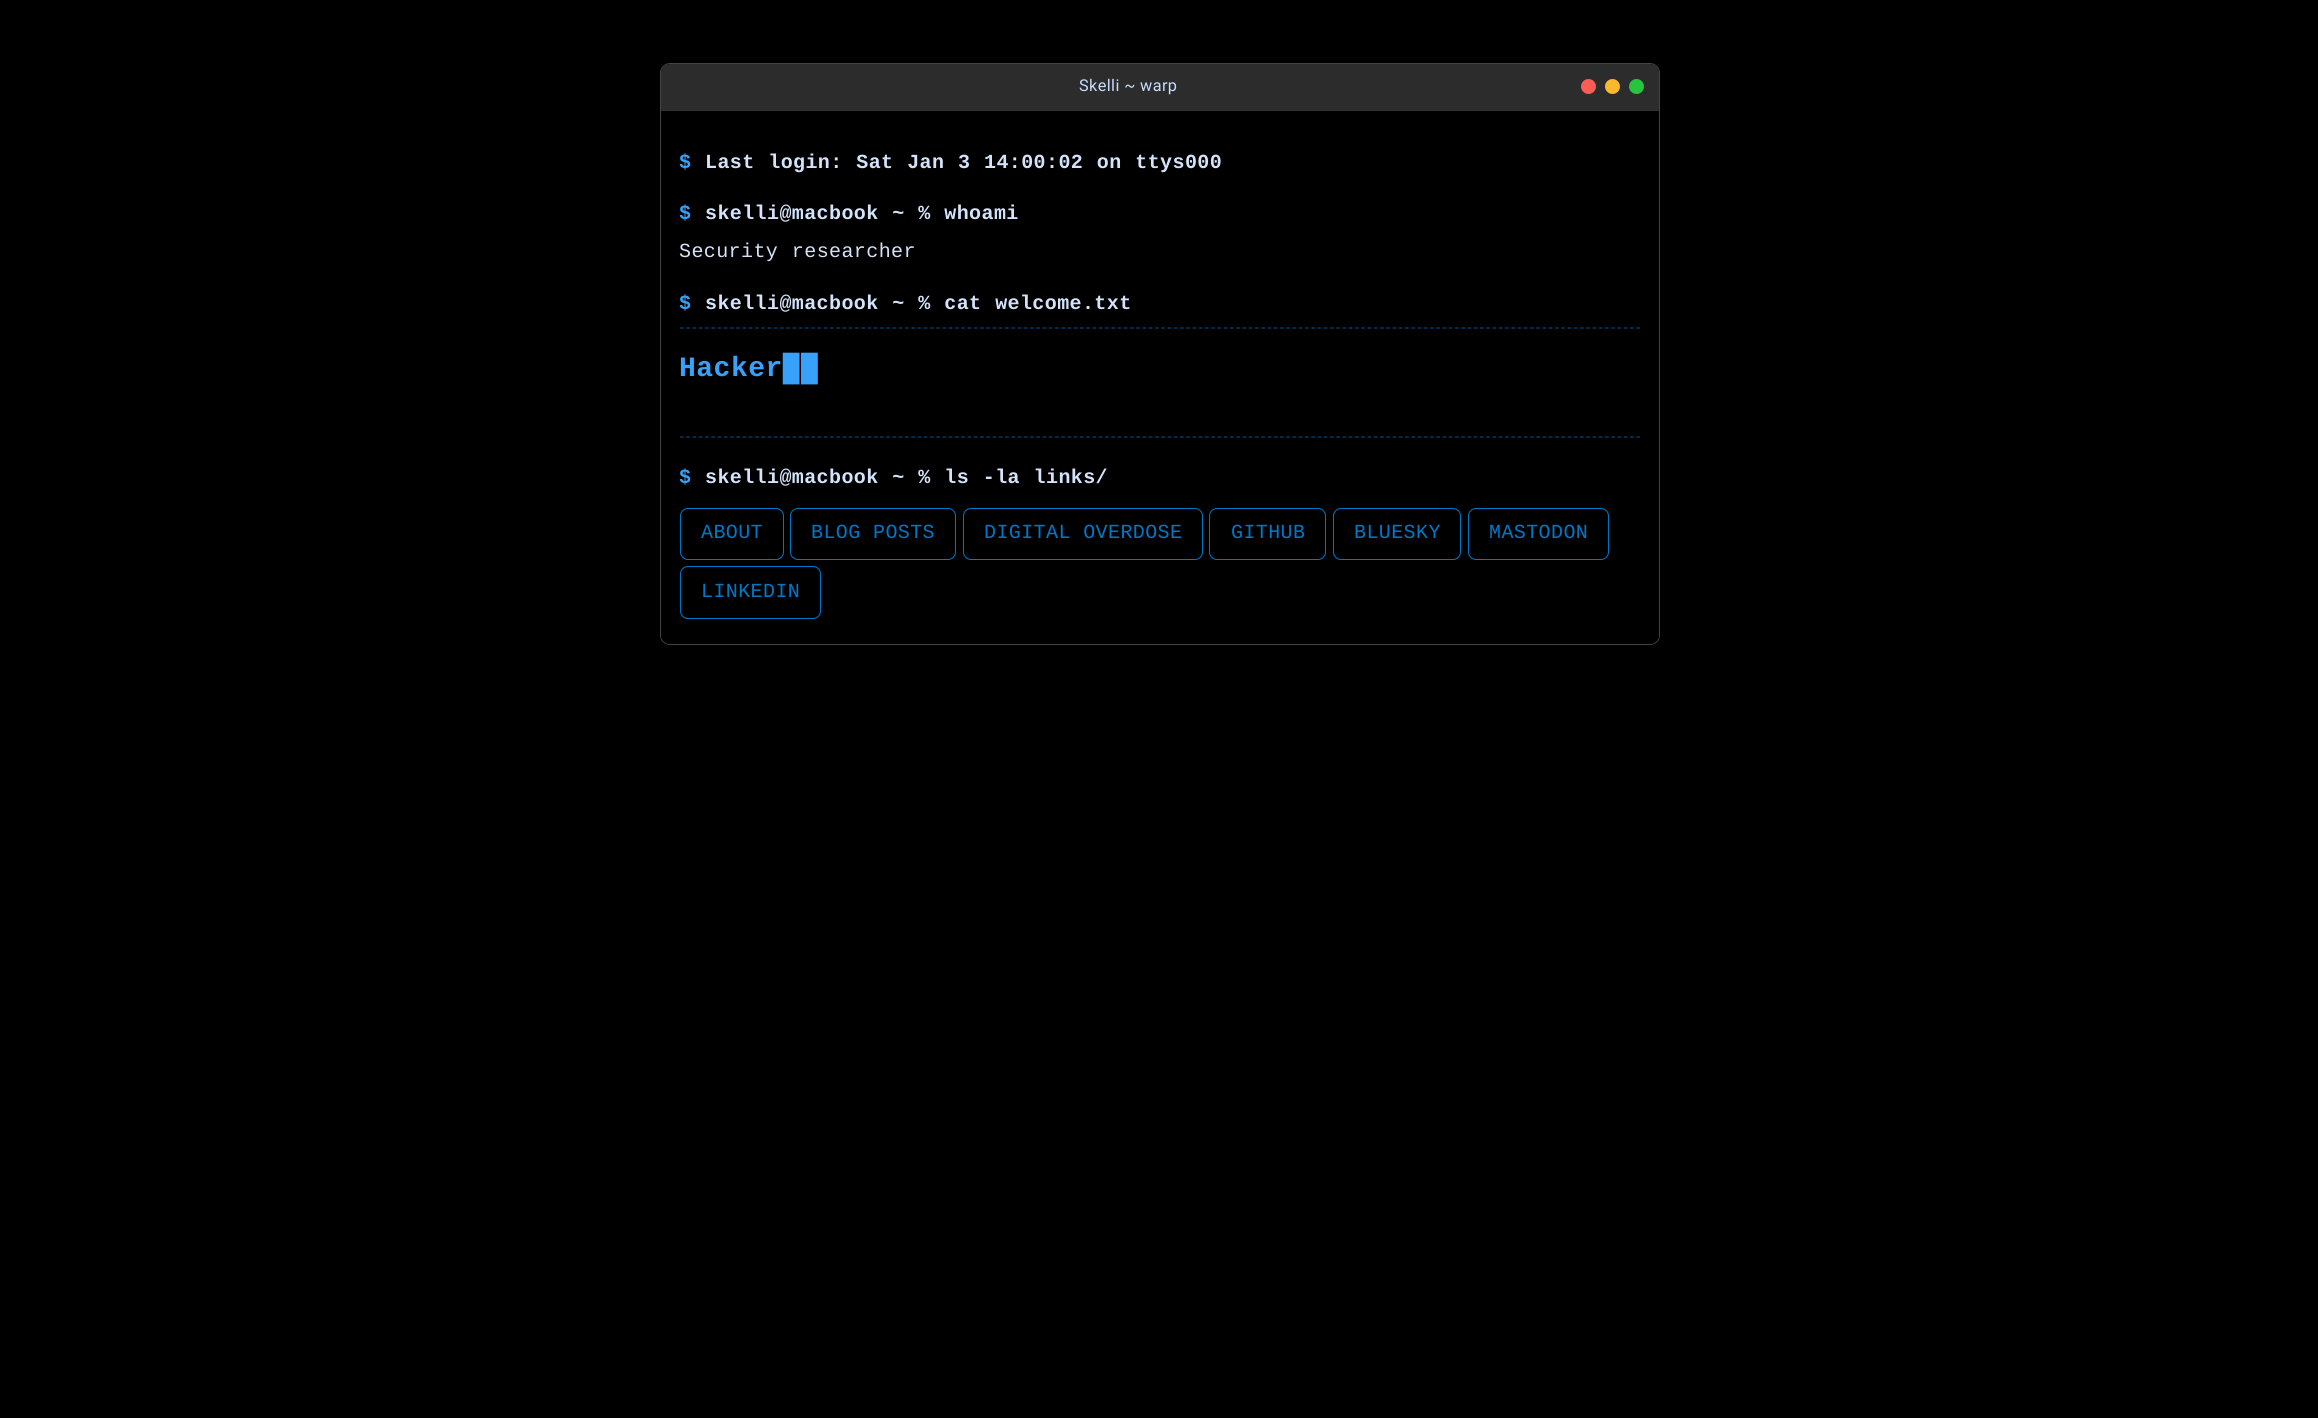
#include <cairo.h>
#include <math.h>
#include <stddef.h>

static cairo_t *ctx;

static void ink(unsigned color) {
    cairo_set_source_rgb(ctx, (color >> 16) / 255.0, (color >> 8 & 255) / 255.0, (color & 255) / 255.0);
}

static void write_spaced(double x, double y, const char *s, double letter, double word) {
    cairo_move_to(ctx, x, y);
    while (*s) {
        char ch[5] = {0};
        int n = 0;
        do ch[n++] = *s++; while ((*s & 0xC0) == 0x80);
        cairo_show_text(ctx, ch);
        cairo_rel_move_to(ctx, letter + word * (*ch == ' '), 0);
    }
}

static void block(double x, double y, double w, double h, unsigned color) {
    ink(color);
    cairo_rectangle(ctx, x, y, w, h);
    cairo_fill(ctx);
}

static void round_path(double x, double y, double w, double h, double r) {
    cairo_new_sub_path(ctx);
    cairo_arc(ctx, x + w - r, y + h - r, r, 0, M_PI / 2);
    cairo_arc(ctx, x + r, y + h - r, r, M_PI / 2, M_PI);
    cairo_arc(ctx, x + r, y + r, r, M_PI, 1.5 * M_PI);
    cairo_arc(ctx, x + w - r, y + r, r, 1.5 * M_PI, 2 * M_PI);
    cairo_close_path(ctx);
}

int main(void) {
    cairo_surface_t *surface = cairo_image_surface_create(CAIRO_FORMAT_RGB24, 2318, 1418);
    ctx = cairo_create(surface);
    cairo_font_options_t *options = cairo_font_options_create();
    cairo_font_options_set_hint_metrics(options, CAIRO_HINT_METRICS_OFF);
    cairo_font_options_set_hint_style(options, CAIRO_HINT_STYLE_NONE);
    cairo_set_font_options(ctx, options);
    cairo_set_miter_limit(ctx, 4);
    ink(0x000000);
    cairo_paint(ctx);
    round_path(660.5, 63.5, 999, 581, 9.5);
    ink(0x434343);
    cairo_set_line_width(ctx, 1);
    cairo_stroke(ctx);
    ink(0x2c2c2c);
    cairo_new_path(ctx);
    cairo_move_to(ctx, 670, 64);
    cairo_line_to(ctx, 1650, 64);
    cairo_curve_to(ctx, 1655, 64, 1659, 68, 1659, 73);
    cairo_line_to(ctx, 1659, 111);
    cairo_line_to(ctx, 661, 111);
    cairo_line_to(ctx, 661, 73);
    cairo_curve_to(ctx, 661, 68, 665, 64, 670, 64);
    cairo_close_path(ctx);
    cairo_fill(ctx);
    block(661, 110, 998, 1, 0x323232);
    cairo_select_font_face(ctx, "Roboto", CAIRO_FONT_SLANT_NORMAL, CAIRO_FONT_WEIGHT_NORMAL);
    cairo_set_font_size(ctx, 16.25);
    ink(0xc4ddfa);
    write_spaced(1079, 91, "Skelli ~ warp", 0.4, 0);
    ink(0xfa5d55);
    cairo_new_path(ctx);
    cairo_arc(ctx, 1588.5, 86.5, 7.5, 0, 2 * M_PI);
    cairo_fill(ctx);
    ink(0xf9b82d);
    cairo_arc(ctx, 1612.5, 86.5, 7.5, 0, 2 * M_PI);
    cairo_fill(ctx);
    ink(0x27c43f);
    cairo_arc(ctx, 1636.5, 86.5, 7.5, 0, 2 * M_PI);
    cairo_fill(ctx);
    ink(0x000000);
    cairo_new_path(ctx);
    cairo_move_to(ctx, 661, 111);
    cairo_line_to(ctx, 1659, 111);
    cairo_line_to(ctx, 1659, 635);
    cairo_curve_to(ctx, 1659, 640, 1655, 644, 1650, 644);
    cairo_line_to(ctx, 670, 644);
    cairo_curve_to(ctx, 665, 644, 661, 640, 661, 635);
    cairo_close_path(ctx);
    cairo_fill(ctx);
    cairo_select_font_face(ctx, "Liberation Mono", CAIRO_FONT_SLANT_NORMAL, CAIRO_FONT_WEIGHT_BOLD);
    cairo_set_font_size(ctx, 20);
    ink(0x38a2fa);
    write_spaced(679, 168, "$", 0.4, 0);
    ink(0xd4e3fa);
    write_spaced(705, 168, "Last login: Sat Jan 3 14:00:02 on ttys000", 0.4, 1.25);
    ink(0x38a2fa);
    write_spaced(679, 219, "$", 0.4, 0);
    ink(0xd4e3fa);
    write_spaced(705, 219, "skelli@macbook ~ % whoami", 0.4, 1.25);
    cairo_select_font_face(ctx, "Liberation Mono", CAIRO_FONT_SLANT_NORMAL, CAIRO_FONT_WEIGHT_NORMAL);
    write_spaced(679, 257, "Security researcher", 0.4, 1.25);
    cairo_select_font_face(ctx, "Liberation Mono", CAIRO_FONT_SLANT_NORMAL, CAIRO_FONT_WEIGHT_BOLD);
    ink(0x38a2fa);
    write_spaced(679, 309, "$", 0.4, 0);
    ink(0xd4e3fa);
    write_spaced(705, 309, "skelli@macbook ~ % cat welcome.txt", 0.4, 1.25);
    cairo_new_path(ctx);
    cairo_move_to(ctx, 680, 328);
    cairo_line_to(ctx, 1640, 328);
    ink(0x004678);
    cairo_set_line_width(ctx, 1.2);
    cairo_set_dash(ctx, (double[]){3.75, 2.5}, 2, 0);
    cairo_stroke(ctx);
    cairo_new_path(ctx);
    cairo_move_to(ctx, 680, 437);
    cairo_line_to(ctx, 1640, 437);
    cairo_stroke(ctx);
    cairo_set_font_size(ctx, 28);
    ink(0x38a2fa);
    write_spaced(679, 376, "Hacker█", 0.5, 0);
    cairo_select_font_face(ctx, "Liberation Mono", CAIRO_FONT_SLANT_NORMAL, CAIRO_FONT_WEIGHT_NORMAL);
    write_spaced(801, 376, "█", 0.5, 0);
    cairo_select_font_face(ctx, "Liberation Mono", CAIRO_FONT_SLANT_NORMAL, CAIRO_FONT_WEIGHT_BOLD);
    cairo_set_font_size(ctx, 20);
    write_spaced(679, 483, "$", 0.4, 0);
    ink(0xd4e3fa);
    write_spaced(705, 483, "skelli@macbook ~ % ls -la links/", 0.4, 1.25);
    round_path(680.5, 508.5, 103, 51, 7.5);
    ink(0x0078c8);
    cairo_set_line_width(ctx, 1);
    cairo_set_dash(ctx, NULL, 0, 0);
    cairo_stroke(ctx);
    cairo_select_font_face(ctx, "Liberation Mono", CAIRO_FONT_SLANT_NORMAL, CAIRO_FONT_WEIGHT_NORMAL);
    write_spaced(701, 538, "ABOUT", 0.4, 0);
    round_path(790.5, 508.5, 165, 51, 7.5);
    cairo_stroke(ctx);
    write_spaced(811, 538, "BLOG POSTS", 0.4, 0);
    round_path(963.5, 508.5, 239, 51, 7.5);
    cairo_stroke(ctx);
    write_spaced(984, 538, "DIGITAL OVERDOSE", 0.4, 0);
    round_path(1209.5, 508.5, 116, 51, 7.5);
    cairo_stroke(ctx);
    write_spaced(1231, 538, "GITHUB", 0.4, 0);
    round_path(1333.5, 508.5, 127, 51, 7.5);
    cairo_stroke(ctx);
    write_spaced(1354, 538, "BLUESKY", 0.4, 0);
    round_path(1468.5, 508.5, 140, 51, 7.5);
    cairo_stroke(ctx);
    write_spaced(1489, 538, "MASTODON", 0.4, 0);
    round_path(680.5, 566.5, 140, 52, 7.5);
    cairo_stroke(ctx);
    write_spaced(701, 597, "LINKEDIN", 0.4, 0);
    cairo_surface_write_to_png(surface, "screenshot.png");
    cairo_font_options_destroy(options);
    cairo_destroy(ctx);
    cairo_surface_destroy(surface);
    return 0;
}
